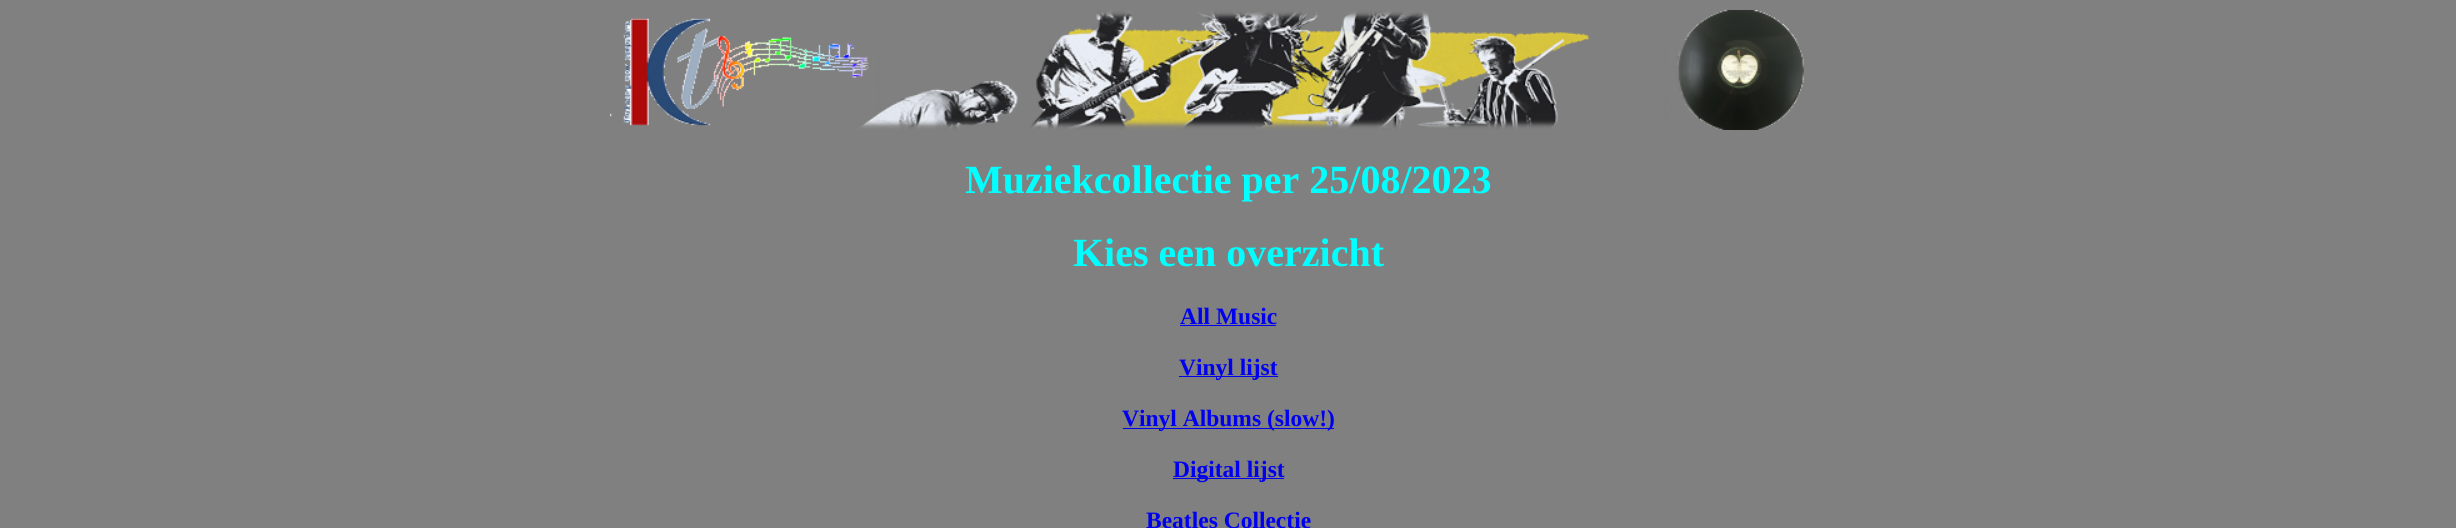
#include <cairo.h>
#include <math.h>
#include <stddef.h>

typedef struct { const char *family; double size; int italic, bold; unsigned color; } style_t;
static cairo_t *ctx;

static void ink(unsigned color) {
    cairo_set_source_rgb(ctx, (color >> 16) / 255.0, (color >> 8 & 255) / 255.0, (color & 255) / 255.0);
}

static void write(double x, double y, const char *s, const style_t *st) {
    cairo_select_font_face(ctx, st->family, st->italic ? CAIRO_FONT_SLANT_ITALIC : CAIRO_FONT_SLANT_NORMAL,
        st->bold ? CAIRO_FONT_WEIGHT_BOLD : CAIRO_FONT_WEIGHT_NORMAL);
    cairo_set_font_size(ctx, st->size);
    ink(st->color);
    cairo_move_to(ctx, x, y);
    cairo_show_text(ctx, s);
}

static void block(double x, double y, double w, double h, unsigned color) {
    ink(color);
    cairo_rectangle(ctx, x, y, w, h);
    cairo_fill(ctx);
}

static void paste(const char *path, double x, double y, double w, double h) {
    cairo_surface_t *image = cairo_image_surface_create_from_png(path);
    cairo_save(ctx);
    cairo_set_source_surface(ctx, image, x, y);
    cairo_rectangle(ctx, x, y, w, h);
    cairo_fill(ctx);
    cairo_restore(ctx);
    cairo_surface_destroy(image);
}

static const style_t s1 = {"Liberation Serif", 40, 0, 1, 0x00ffff};
static const style_t s2 = {"Liberation Serif", 23.5, 0, 1, 0x0000ee};

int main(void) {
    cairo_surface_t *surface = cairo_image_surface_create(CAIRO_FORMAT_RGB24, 2456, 528);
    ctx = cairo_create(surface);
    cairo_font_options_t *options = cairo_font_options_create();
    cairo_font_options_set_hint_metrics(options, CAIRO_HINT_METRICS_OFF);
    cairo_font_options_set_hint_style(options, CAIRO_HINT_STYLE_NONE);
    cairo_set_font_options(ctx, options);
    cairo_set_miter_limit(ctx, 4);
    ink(0x808080);
    cairo_paint(ctx);
    paste("pic1.png", 609, 10, 1195, 120);
    write(965, 193, "Muziekcollectie per 25/08/2023", &s1);
    write(1073, 266, "Kies een overzicht", &s1);
    write(1180, 324, "All Music", &s2);
    block(1180, 325, 96, 1, 0x0000ee);
    block(1179, 376, 99, 1, 0x0000ee);
    write(1179, 375, "Vinyl lijst", &s2);
    block(1123, 428, 211, 1, 0x0000ee);
    write(1122, 426, "Vinyl Albums (slow!)", &s2);
    block(1173, 478, 111, 1, 0x0000ee);
    write(1173, 477, "Digital lijst", &s2);
    write(1146, 528, "Beatles Collectie", &s2);
    cairo_surface_write_to_png(surface, "screenshot.png");
    cairo_font_options_destroy(options);
    cairo_destroy(ctx);
    cairo_surface_destroy(surface);
    return 0;
}
